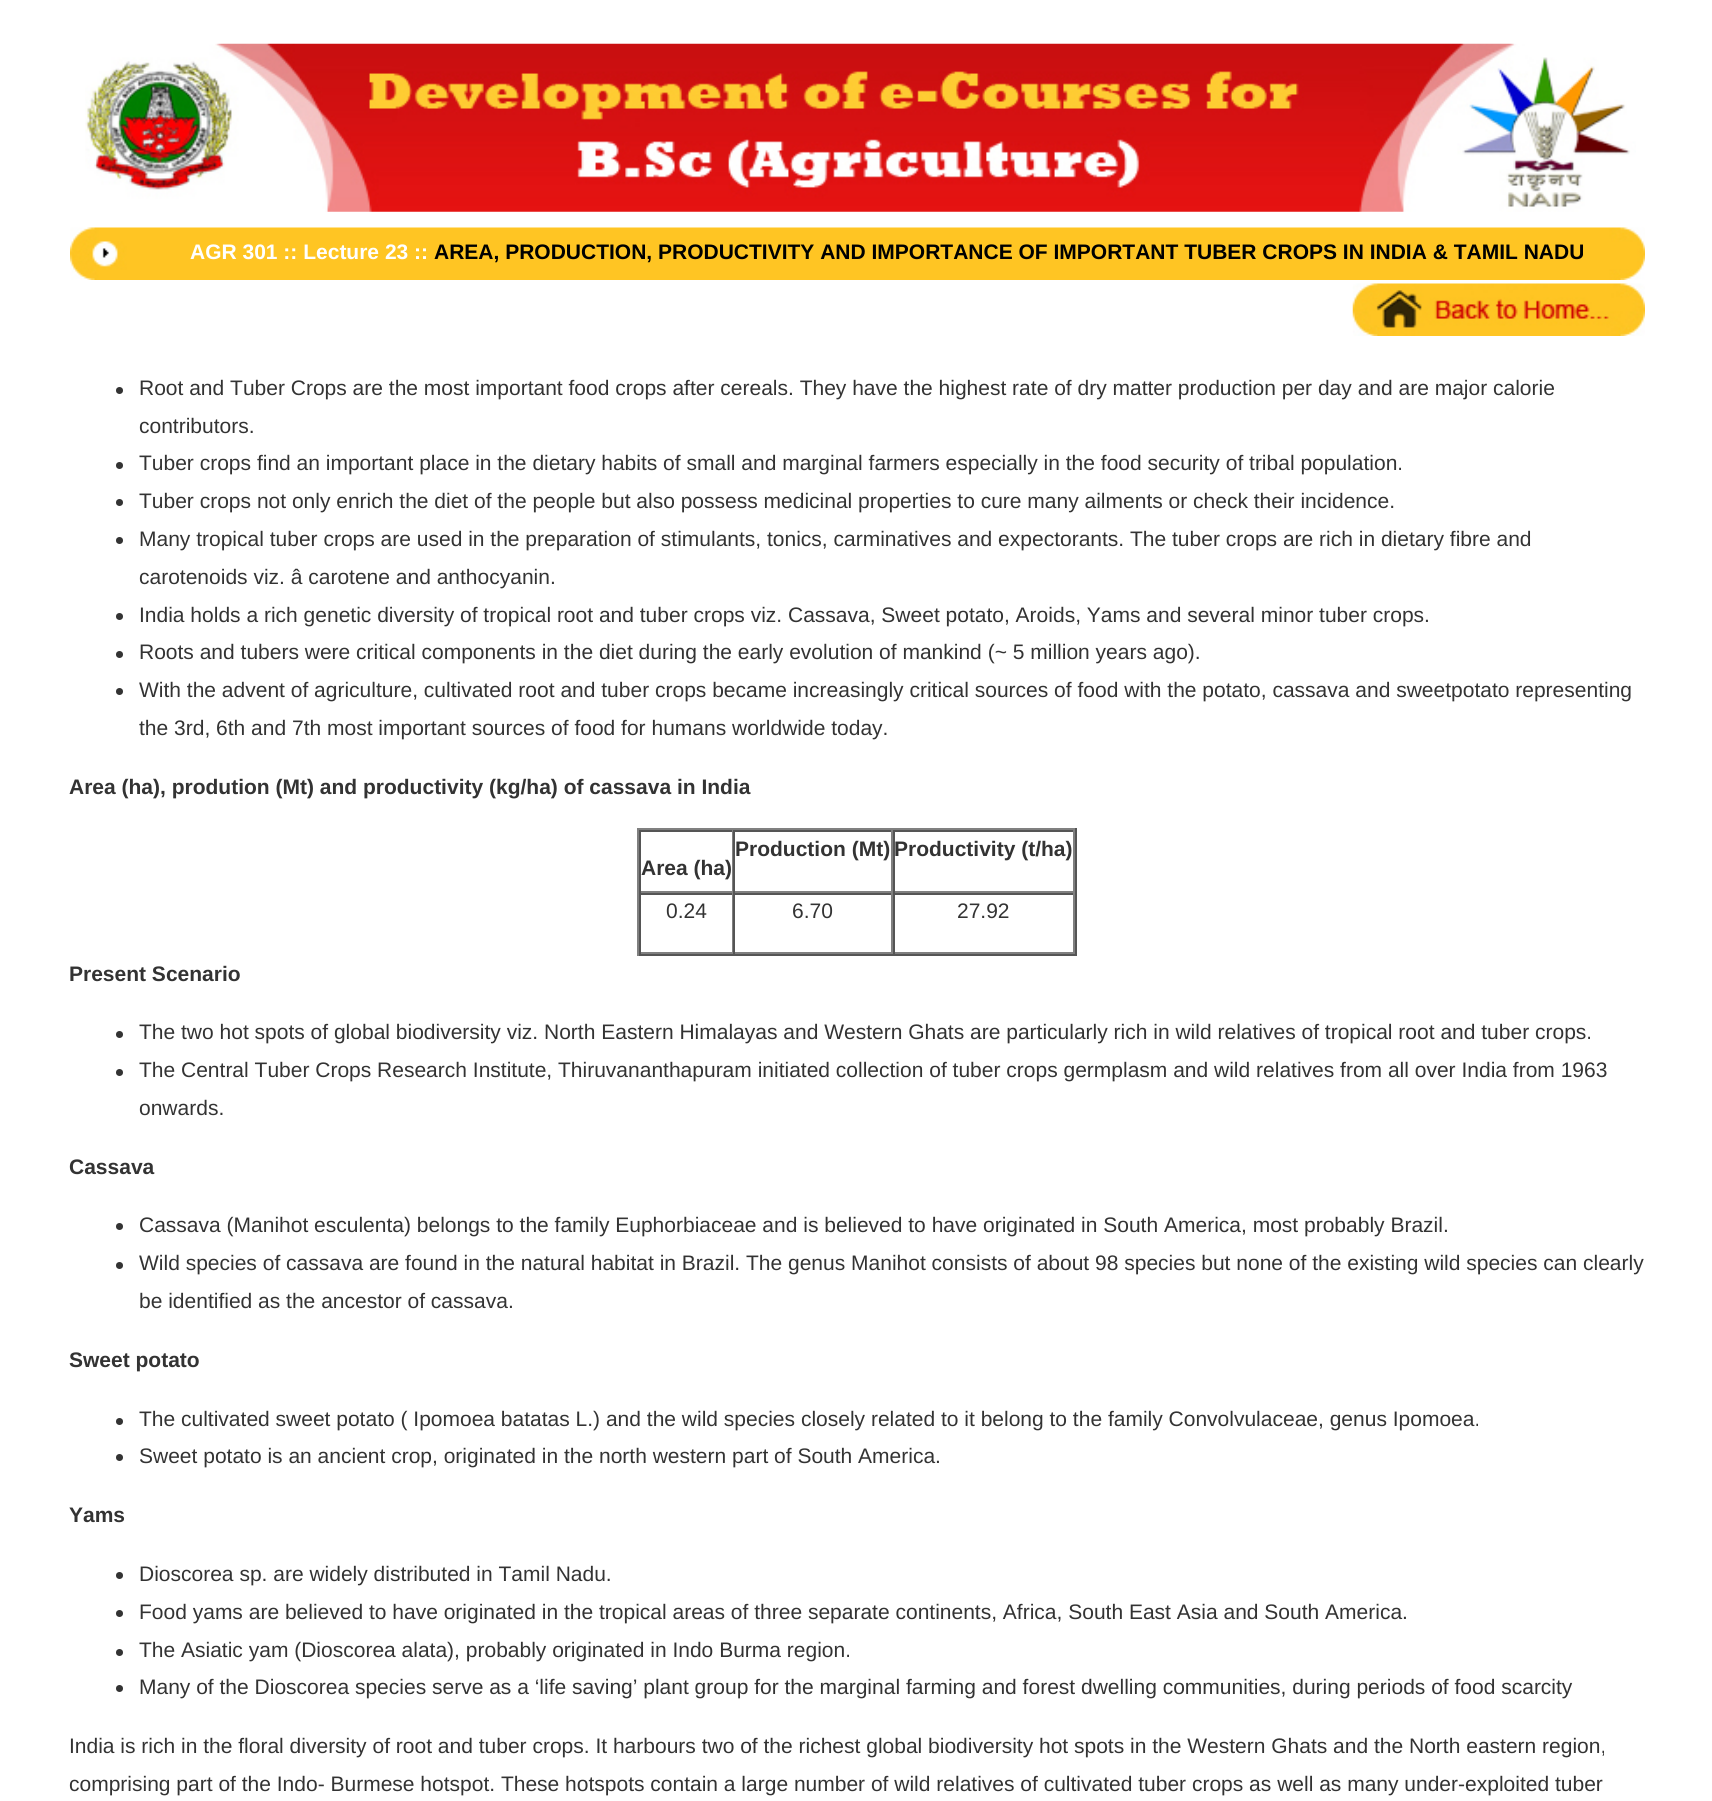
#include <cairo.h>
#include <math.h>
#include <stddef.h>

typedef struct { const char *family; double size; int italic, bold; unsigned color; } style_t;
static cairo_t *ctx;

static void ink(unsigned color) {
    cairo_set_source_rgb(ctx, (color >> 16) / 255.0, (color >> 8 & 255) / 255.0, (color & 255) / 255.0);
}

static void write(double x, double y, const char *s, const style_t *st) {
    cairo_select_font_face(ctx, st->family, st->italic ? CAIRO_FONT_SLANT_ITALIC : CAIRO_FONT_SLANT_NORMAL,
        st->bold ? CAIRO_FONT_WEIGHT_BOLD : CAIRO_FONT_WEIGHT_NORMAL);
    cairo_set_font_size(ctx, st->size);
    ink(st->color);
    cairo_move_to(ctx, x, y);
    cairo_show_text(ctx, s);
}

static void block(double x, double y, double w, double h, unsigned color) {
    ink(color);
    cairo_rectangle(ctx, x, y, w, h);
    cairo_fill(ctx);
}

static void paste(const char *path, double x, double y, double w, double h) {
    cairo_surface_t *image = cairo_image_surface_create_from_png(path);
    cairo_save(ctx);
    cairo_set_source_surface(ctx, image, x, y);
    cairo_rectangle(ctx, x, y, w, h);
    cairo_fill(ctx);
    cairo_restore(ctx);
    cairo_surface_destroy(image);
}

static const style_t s1 = {"Liberation Sans", 21, 0, 1, 0xffffff};
static const style_t s2 = {"Liberation Sans", 21, 0, 1, 0x000000};
static const style_t s3 = {"Liberation Sans", 21, 0, 0, 0x333333};
static const style_t s4 = {"Liberation Sans", 21, 0, 1, 0x333333};

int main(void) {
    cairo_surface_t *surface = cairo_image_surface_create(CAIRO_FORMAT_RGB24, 1712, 1801);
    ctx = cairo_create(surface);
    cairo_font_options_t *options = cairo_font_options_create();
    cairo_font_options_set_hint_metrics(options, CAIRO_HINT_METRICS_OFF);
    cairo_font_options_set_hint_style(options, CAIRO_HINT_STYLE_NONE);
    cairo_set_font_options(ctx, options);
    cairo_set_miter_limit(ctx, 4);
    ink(0xffffff);
    cairo_paint(ctx);
    paste("pic1.png", 85, 43, 1551, 169);
    paste("pic2.png", 70, 227, 1575, 53);
    write(190, 259, "AGR 301 :: Lecture 23 ::", &s1);
    write(434, 259, "AREA, PRODUCTION, PRODUCTIVITY AND IMPORTANCE OF IMPORTANT TUBER CROPS IN INDIA & TAMIL NADU", &s2);
    paste("pic3.png", 1352, 283, 293, 53);
    ink(0x333333);
    cairo_arc(ctx, 119.5, 390.5, 3.5, 0, 2 * M_PI);
    cairo_fill(ctx);
    write(139, 395, "Root and Tuber Crops are the most important food crops after cereals. They have the highest rate of dry matter production per day and are major calorie", &s3);
    write(139, 433, "contributors.", &s3);
    cairo_new_path(ctx);
    cairo_arc(ctx, 119.5, 465.5, 3.5, 0, 2 * M_PI);
    cairo_fill(ctx);
    write(139, 470, "Tuber crops find an important place in the dietary habits of small and marginal farmers especially in the food security of tribal population.", &s3);
    cairo_new_path(ctx);
    cairo_arc(ctx, 119.5, 502.5, 3.5, 0, 2 * M_PI);
    cairo_fill(ctx);
    write(139, 508, "Tuber crops not only enrich the diet of the people but also possess medicinal properties to cure many ailments or check their incidence.", &s3);
    cairo_new_path(ctx);
    cairo_arc(ctx, 119.5, 540.5, 3.5, 0, 2 * M_PI);
    cairo_fill(ctx);
    write(139, 546, "Many tropical tuber crops are used in the preparation of stimulants, tonics, carminatives and expectorants. The tuber crops are rich in dietary fibre and", &s3);
    write(139, 584, "carotenoids viz. â carotene and anthocyanin.", &s3);
    cairo_new_path(ctx);
    cairo_arc(ctx, 119.5, 616.5, 3.5, 0, 2 * M_PI);
    cairo_fill(ctx);
    write(139, 622, "India holds a rich genetic diversity of tropical root and tuber crops viz. Cassava, Sweet potato, Aroids, Yams and several minor tuber crops.", &s3);
    cairo_new_path(ctx);
    cairo_arc(ctx, 119.5, 654.5, 3.5, 0, 2 * M_PI);
    cairo_fill(ctx);
    write(139, 659, "Roots and tubers were critical components in the diet during the early evolution of mankind (~ 5 million years ago).", &s3);
    cairo_new_path(ctx);
    cairo_arc(ctx, 119.5, 691.5, 3.5, 0, 2 * M_PI);
    cairo_fill(ctx);
    write(139, 697, "With the advent of agriculture, cultivated root and tuber crops became increasingly critical sources of food with the potato, cassava and sweetpotato representing", &s3);
    write(139, 735, "the 3rd, 6th and 7th most important sources of food for humans worldwide today.", &s3);
    write(69, 794, "Area (ha), prodution (Mt) and productivity (kg/ha) of cassava in India", &s4);
    block(637, 828, 439, 2, 0x808080);
    block(1075, 828, 2, 128, 0x555555);
    block(637, 954, 439, 2, 0x555555);
    block(637, 828, 2, 128, 0x808080);
    block(639, 830, 436, 2, 0x555555);
    block(891, 830, 2, 63, 0x808080);
    block(733, 891, 160, 2, 0x808080);
    block(733, 830, 2, 63, 0x555555);
    write(735, 856, "Production (Mt)", &s4);
    block(1073, 830, 2, 63, 0x808080);
    block(893, 891, 182, 2, 0x808080);
    block(893, 830, 2, 63, 0x555555);
    write(894, 856, "Productivity (t/ha)", &s4);
    block(732, 830, 1, 63, 0x808080);
    block(639, 891, 94, 2, 0x808080);
    block(639, 830, 2, 63, 0x555555);
    write(641, 875, "Area (ha)", &s4);
    block(639, 893, 436, 2, 0x555555);
    block(732, 893, 1, 61, 0x808080);
    block(639, 952, 94, 2, 0x808080);
    block(639, 893, 2, 61, 0x555555);
    write(666, 918, "0.24", &s3);
    block(891, 893, 2, 61, 0x808080);
    block(733, 952, 160, 2, 0x808080);
    block(733, 893, 2, 61, 0x555555);
    write(792, 918, "6.70", &s3);
    block(1073, 893, 2, 61, 0x808080);
    block(893, 952, 182, 2, 0x808080);
    block(893, 893, 2, 61, 0x555555);
    write(957, 918, "27.92", &s3);
    write(69, 981, "Present Scenario", &s4);
    cairo_new_path(ctx);
    cairo_arc(ctx, 119.5, 1034.5, 3.5, 0, 2 * M_PI);
    cairo_fill(ctx);
    write(139, 1039, "The two hot spots of global biodiversity viz. North Eastern Himalayas and Western Ghats are particularly rich in wild relatives of tropical root and tuber crops.", &s3);
    cairo_new_path(ctx);
    cairo_arc(ctx, 119.5, 1072.5, 3.5, 0, 2 * M_PI);
    cairo_fill(ctx);
    write(139, 1077, "The Central Tuber Crops Research Institute, Thiruvananthapuram initiated collection of tuber crops germplasm and wild relatives from all over India from 1963", &s3);
    write(139, 1115, "onwards.", &s3);
    write(69, 1174, "Cassava", &s4);
    cairo_new_path(ctx);
    cairo_arc(ctx, 119.5, 1226.5, 3.5, 0, 2 * M_PI);
    cairo_fill(ctx);
    write(139, 1232, "Cassava (Manihot esculenta) belongs to the family Euphorbiaceae and is believed to have originated in South America, most probably Brazil.", &s3);
    cairo_new_path(ctx);
    cairo_arc(ctx, 119.5, 1265.5, 3.5, 0, 2 * M_PI);
    cairo_fill(ctx);
    write(139, 1270, "Wild species of cassava are found in the natural habitat in Brazil. The genus Manihot consists of about 98 species but none of the existing wild species can clearly", &s3);
    write(139, 1308, "be identified as the ancestor of cassava.", &s3);
    write(69, 1367, "Sweet potato", &s4);
    cairo_new_path(ctx);
    cairo_arc(ctx, 119.5, 1421.5, 3.5, 0, 2 * M_PI);
    cairo_fill(ctx);
    write(139, 1426, "The cultivated sweet potato ( Ipomoea batatas L.) and the wild species closely related to it belong to the family Convolvulaceae, genus Ipomoea.", &s3);
    cairo_new_path(ctx);
    cairo_arc(ctx, 119.5, 1457.5, 3.5, 0, 2 * M_PI);
    cairo_fill(ctx);
    write(139, 1463, "Sweet potato is an ancient crop, originated in the north western part of South America.", &s3);
    write(69, 1522, "Yams", &s4);
    cairo_new_path(ctx);
    cairo_arc(ctx, 119.5, 1575.5, 3.5, 0, 2 * M_PI);
    cairo_fill(ctx);
    write(139, 1581, "Dioscorea sp. are widely distributed in Tamil Nadu.", &s3);
    cairo_new_path(ctx);
    cairo_arc(ctx, 119.5, 1613.5, 3.5, 0, 2 * M_PI);
    cairo_fill(ctx);
    write(139, 1619, "Food yams are believed to have originated in the tropical areas of three separate continents, Africa, South East Asia and South America.", &s3);
    cairo_new_path(ctx);
    cairo_arc(ctx, 119.5, 1652.5, 3.5, 0, 2 * M_PI);
    cairo_fill(ctx);
    write(139, 1657, "The Asiatic yam (Dioscorea alata), probably originated in Indo Burma region.", &s3);
    cairo_new_path(ctx);
    cairo_arc(ctx, 119.5, 1688.5, 3.5, 0, 2 * M_PI);
    cairo_fill(ctx);
    write(139, 1694, "Many of the Dioscorea species serve as a ‘life saving’ plant group for the marginal farming and forest dwelling communities, during periods of food scarcity", &s3);
    write(69, 1753, "India is rich in the floral diversity of root and tuber crops. It harbours two of the richest global biodiversity hot spots in the Western Ghats and the North eastern region,", &s3);
    write(69, 1791, "comprising part of the Indo- Burmese hotspot. These hotspots contain a large number of wild relatives of cultivated tuber crops as well as many under-exploited tuber", &s3);
    cairo_surface_write_to_png(surface, "screenshot.png");
    cairo_font_options_destroy(options);
    cairo_destroy(ctx);
    cairo_surface_destroy(surface);
    return 0;
}
